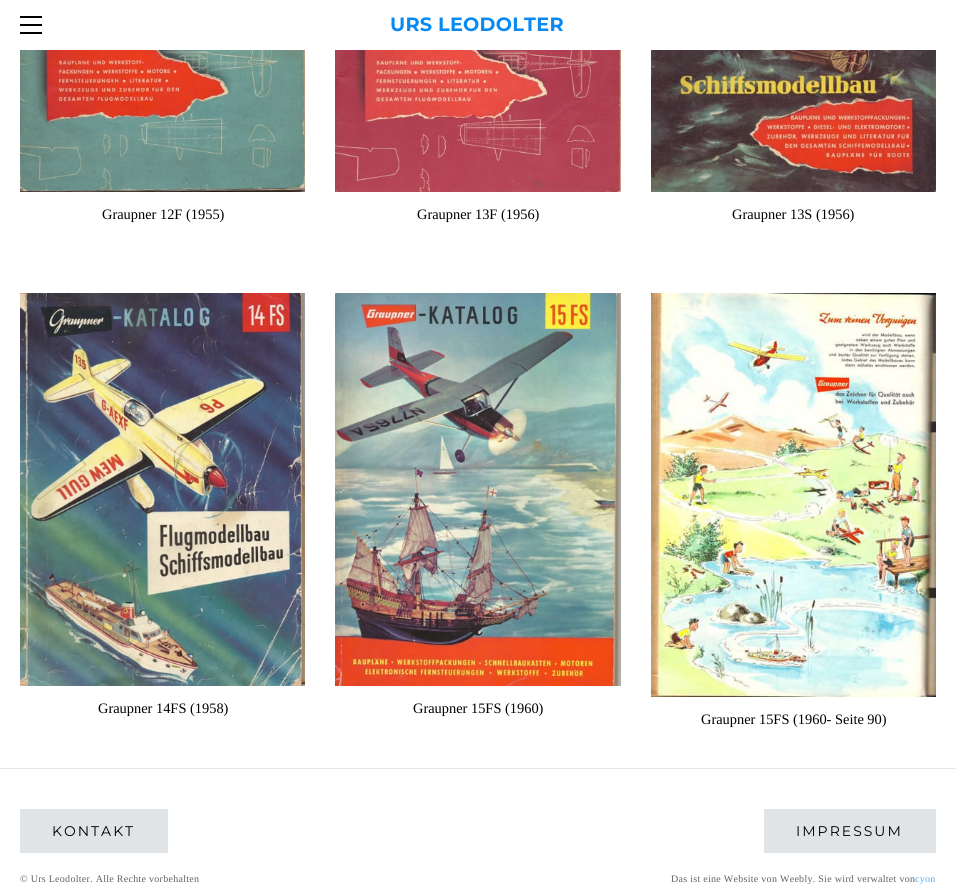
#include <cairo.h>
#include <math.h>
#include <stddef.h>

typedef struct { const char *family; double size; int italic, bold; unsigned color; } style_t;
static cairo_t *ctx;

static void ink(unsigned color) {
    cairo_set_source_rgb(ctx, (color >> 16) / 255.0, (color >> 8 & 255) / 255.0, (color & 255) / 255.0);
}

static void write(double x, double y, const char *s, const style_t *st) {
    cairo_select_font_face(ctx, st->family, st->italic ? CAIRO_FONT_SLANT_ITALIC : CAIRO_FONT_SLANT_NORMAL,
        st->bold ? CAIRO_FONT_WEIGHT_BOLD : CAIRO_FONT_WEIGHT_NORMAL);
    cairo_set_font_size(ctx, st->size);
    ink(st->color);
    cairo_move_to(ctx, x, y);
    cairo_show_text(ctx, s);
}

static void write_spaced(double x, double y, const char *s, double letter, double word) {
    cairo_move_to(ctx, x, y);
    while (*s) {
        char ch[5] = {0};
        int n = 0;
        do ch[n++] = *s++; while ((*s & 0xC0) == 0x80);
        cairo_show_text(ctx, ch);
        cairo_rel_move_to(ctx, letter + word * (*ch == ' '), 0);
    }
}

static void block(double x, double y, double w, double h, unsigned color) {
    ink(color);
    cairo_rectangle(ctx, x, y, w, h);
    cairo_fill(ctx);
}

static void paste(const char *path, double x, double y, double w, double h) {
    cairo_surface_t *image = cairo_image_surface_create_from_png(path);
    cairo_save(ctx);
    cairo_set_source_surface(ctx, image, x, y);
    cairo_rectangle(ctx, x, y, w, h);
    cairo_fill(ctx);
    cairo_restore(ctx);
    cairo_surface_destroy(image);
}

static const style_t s1 = {"Liberation Serif", 14.4, 0, 0, 0x000000};

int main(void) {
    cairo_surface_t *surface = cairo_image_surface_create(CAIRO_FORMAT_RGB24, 956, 884);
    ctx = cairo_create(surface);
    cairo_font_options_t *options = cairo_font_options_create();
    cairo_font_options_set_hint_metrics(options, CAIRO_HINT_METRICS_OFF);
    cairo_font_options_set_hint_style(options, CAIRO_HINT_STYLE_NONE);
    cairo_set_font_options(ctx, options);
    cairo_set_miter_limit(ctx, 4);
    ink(0xffffff);
    cairo_paint(ctx);
    block(20, 24, 22, 2, 0x000000);
    block(20, 16, 22, 2, 0x000000);
    block(20, 32, 22, 2, 0x000000);
    cairo_select_font_face(ctx, "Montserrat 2 Thin", CAIRO_FONT_SLANT_NORMAL, CAIRO_FONT_WEIGHT_NORMAL);
    cairo_set_font_size(ctx, 19.25);
    ink(0x098af3);
    write_spaced(390, 31, "URS LEODOLTER", 0.25, 0);
    paste("pic1.png", 20, 50, 285, 142);
    write(102, 219, "Graupner 12F (1955)", &s1);
    paste("pic2.png", 335, 50, 286, 142);
    write(417, 219, "Graupner 13F (1956)", &s1);
    paste("pic3.png", 651, 50, 285, 142);
    write(732, 219, "Graupner 13S (1956)", &s1);
    paste("pic4.png", 20, 293, 285, 393);
    write(98, 713, "Graupner 14FS (1958)", &s1);
    paste("pic5.png", 335, 293, 286, 393);
    write(413, 713, "Graupner 15FS (1960)", &s1);
    paste("pic6.png", 651, 293, 285, 404);
    write(701, 724, "Graupner 15FS (1960- Seite 90)", &s1);
    block(0, 768, 956, 1, 0xe6e6e6);
    block(20, 809, 148, 44, 0xe1e4e6);
    cairo_select_font_face(ctx, "Montserrat Thin", CAIRO_FONT_SLANT_NORMAL, CAIRO_FONT_WEIGHT_NORMAL);
    cairo_set_font_size(ctx, 14);
    ink(0x000000);
    write_spaced(52, 836, "KONTAKT", 2, 0);
    block(764, 809, 172, 44, 0xe1e4e6);
    ink(0x000000);
    write_spaced(796, 836, "IMPRESSUM", 2, 0);
    cairo_select_font_face(ctx, "Liberation Serif", CAIRO_FONT_SLANT_NORMAL, CAIRO_FONT_WEIGHT_NORMAL);
    cairo_set_font_size(ctx, 10);
    ink(0x626262);
    write_spaced(20, 882, "© Urs Leodolter. Alle Rechte vorbehalten", 0.28, 0);
    write_spaced(671, 882, "Das ist eine Website von Weebly. Sie wird verwaltet von", 0.28, 0);
    ink(0x53adf7);
    write_spaced(915, 882, "cyon", 0.28, 0);
    cairo_surface_write_to_png(surface, "screenshot.png");
    cairo_font_options_destroy(options);
    cairo_destroy(ctx);
    cairo_surface_destroy(surface);
    return 0;
}
